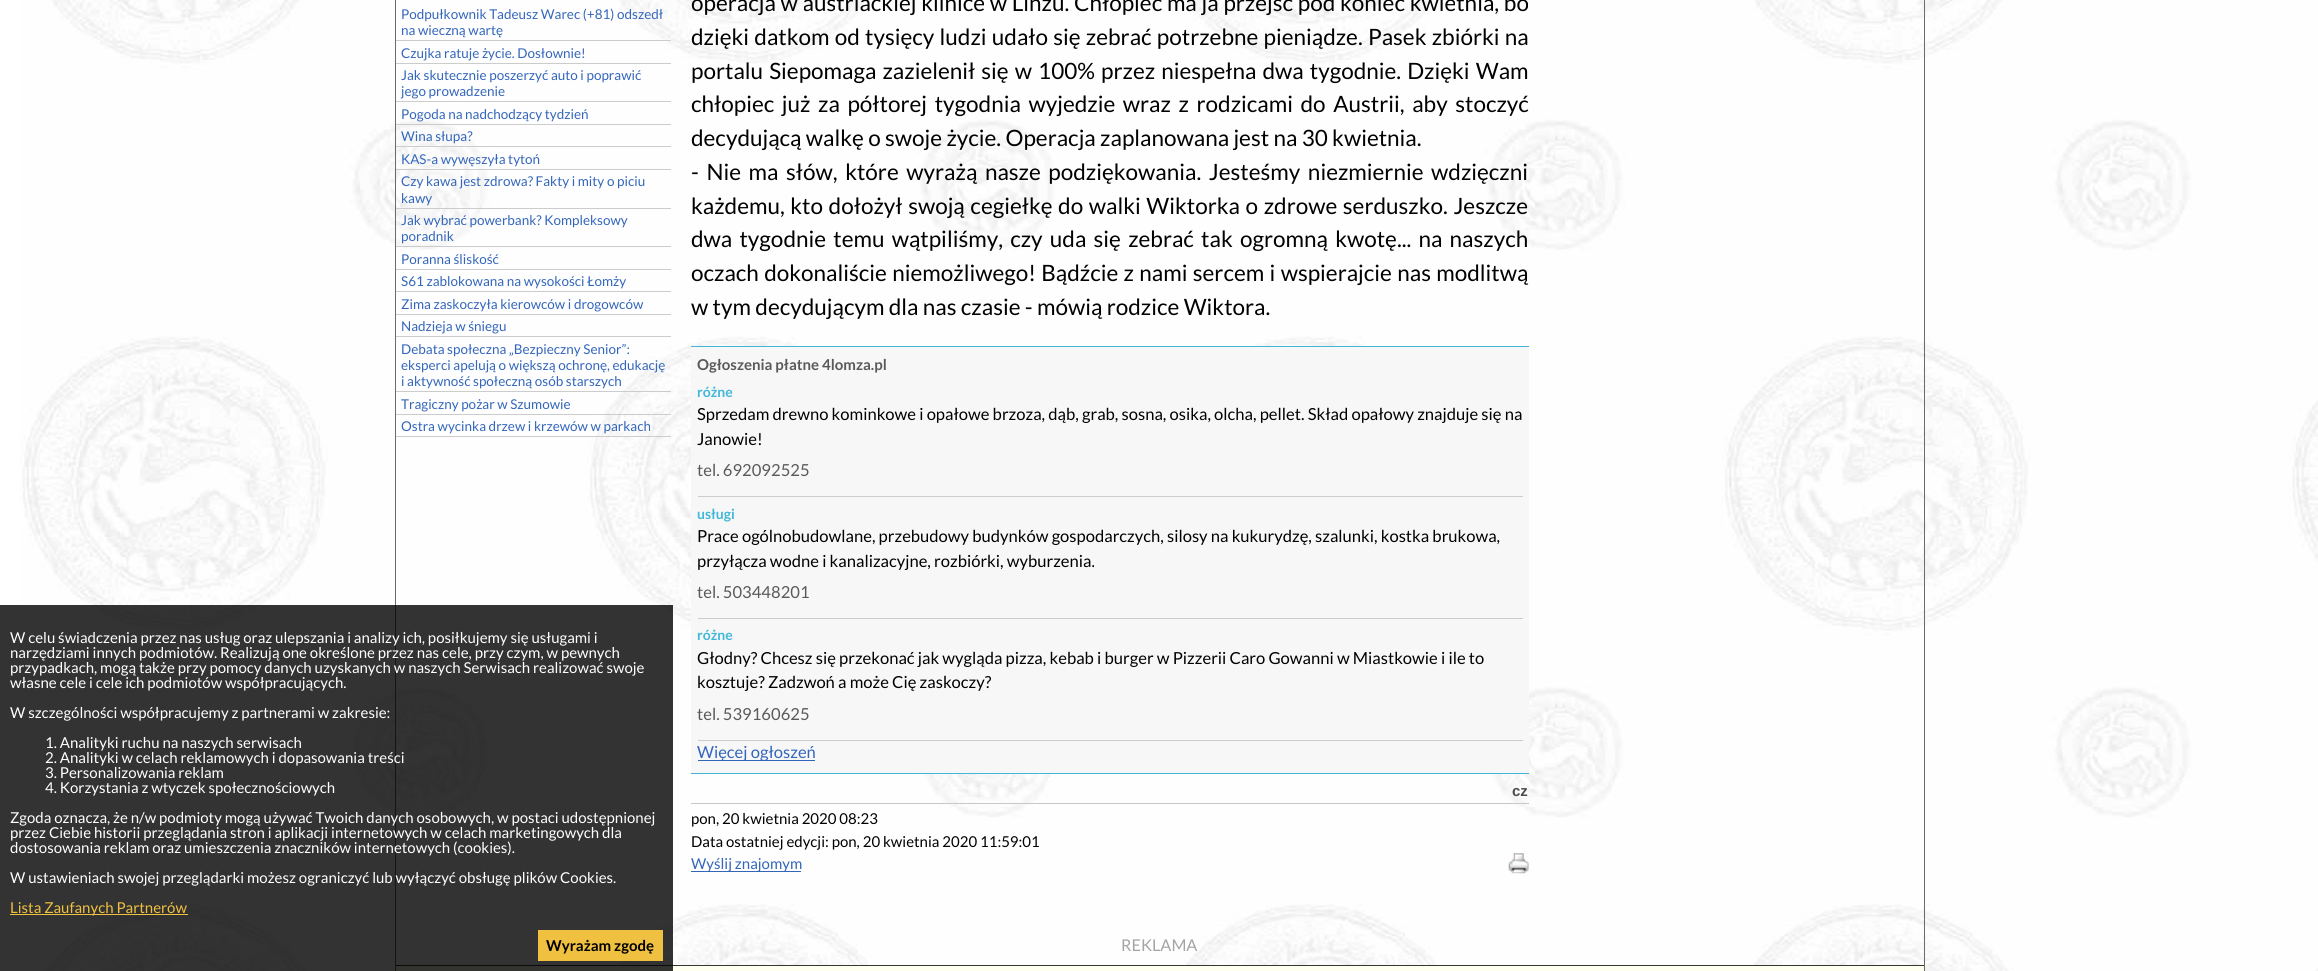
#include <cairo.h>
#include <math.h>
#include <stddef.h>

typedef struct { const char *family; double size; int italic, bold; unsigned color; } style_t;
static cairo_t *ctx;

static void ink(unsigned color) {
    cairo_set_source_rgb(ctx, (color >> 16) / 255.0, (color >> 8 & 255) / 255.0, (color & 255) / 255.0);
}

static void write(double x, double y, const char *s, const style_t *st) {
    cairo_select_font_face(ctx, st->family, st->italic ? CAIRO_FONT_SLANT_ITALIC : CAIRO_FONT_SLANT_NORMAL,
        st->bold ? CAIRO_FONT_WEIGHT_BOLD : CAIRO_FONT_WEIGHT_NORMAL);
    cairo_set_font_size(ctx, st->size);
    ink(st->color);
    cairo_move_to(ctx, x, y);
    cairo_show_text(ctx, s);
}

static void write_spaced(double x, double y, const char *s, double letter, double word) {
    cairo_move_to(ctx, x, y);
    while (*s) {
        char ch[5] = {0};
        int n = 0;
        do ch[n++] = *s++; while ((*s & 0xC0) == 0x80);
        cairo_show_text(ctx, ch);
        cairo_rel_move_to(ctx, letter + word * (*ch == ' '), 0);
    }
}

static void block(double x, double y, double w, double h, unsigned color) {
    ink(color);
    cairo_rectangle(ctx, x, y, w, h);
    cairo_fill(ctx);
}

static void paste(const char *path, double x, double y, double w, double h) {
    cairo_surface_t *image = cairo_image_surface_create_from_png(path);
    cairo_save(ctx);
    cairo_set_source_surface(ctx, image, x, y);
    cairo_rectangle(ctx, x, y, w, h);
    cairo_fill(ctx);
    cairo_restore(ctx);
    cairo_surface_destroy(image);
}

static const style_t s1 = {"Lato", 15, 0, 0, 0xffffff};
static const style_t s2 = {"Lato", 15, 0, 0, 0xf0c040};
static const style_t s3 = {"Lato", 15, 0, 1, 0x000000};
static const style_t s4 = {"Lato", 13.5, 0, 0, 0x3366bb};
static const style_t s5 = {"Lato", 22.5, 0, 0, 0x000000};
static const style_t s6 = {"Lato", 15, 0, 1, 0x5a5a5a};
static const style_t s7 = {"Lato", 14, 0, 1, 0x41b7d8};
static const style_t s8 = {"Lato", 16.6, 0, 0, 0x000000};
static const style_t s9 = {"Lato", 16.6, 0, 0, 0x5a5a5a};
static const style_t s10 = {"Lato", 16.6, 0, 0, 0x3366bb};
static const style_t s11 = {"Liberation Sans", 15, 0, 1, 0x4b4b4b};
static const style_t s12 = {"Lato", 15, 0, 0, 0x000000};
static const style_t s13 = {"Lato", 15, 0, 0, 0x3366bb};
static const style_t s14 = {"Lato", 16.25, 0, 0, 0xa4a4a4};

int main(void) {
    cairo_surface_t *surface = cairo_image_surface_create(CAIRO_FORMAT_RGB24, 2318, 971);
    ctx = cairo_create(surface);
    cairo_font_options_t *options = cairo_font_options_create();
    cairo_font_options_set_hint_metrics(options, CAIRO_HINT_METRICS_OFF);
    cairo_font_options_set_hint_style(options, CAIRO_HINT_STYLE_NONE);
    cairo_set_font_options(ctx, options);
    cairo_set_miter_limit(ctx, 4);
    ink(0xffffff);
    cairo_paint(ctx);
    paste("pic1.png", 20, 0, 2298, 971);
    block(395, 0, 1, 971, 0x6a6a6a);
    block(396, 966, 1528, 5, 0xfffff0);
    block(396, 965, 1528, 1, 0x363636);
    cairo_set_source_rgba(ctx, 0, 0, 0, 0.8);
    cairo_rectangle(ctx, 0, 605, 673, 366);
    cairo_fill(ctx);
    write(10, 643, "W celu świadczenia przez nas usług oraz ulepszania i analizy ich, posiłkujemy się usługami i", &s1);
    write(10, 658, "narzędziami innych podmiotów. Realizują one określone przez nas cele, przy czym, w pewnych", &s1);
    write(10, 673, "przypadkach, mogą także przy pomocy danych uzyskanych w naszych Serwisach realizować swoje", &s1);
    write(10, 688, "własne cele i cele ich podmiotów współpracujących.", &s1);
    write(10, 718, "W szczególności współpracujemy z partnerami w zakresie:", &s1);
    write(45, 748, "1. Analityki ruchu na naszych serwisach", &s1);
    write(45, 763, "2. Analityki w celach reklamowych i dopasowania treści", &s1);
    write(45, 778, "3. Personalizowania reklam", &s1);
    write(45, 793, "4. Korzystania z wtyczek społecznościowych", &s1);
    write(10, 823, "Zgoda oznacza, że n/w podmioty mogą używać Twoich danych osobowych, w postaci udostępnionej", &s1);
    write(10, 838, "przez Ciebie historii przeglądania stron i aplikacji internetowych w celach marketingowych dla", &s1);
    write(10, 853, "dostosowania reklam oraz umieszczenia znaczników internetowych (cookies).", &s1);
    write(10, 883, "W ustawieniach swojej przeglądarki możesz ograniczyć lub wyłączyć obsługę plików Cookies.", &s1);
    block(10, 914, 178, 1, 0xf0c040);
    write(10, 913, "Lista Zaufanych Partnerów", &s2);
    block(538, 930, 125, 31, 0xf0c040);
    write(546, 951, "Wyrażam zgodę", &s3);
    block(1924, 0, 1, 971, 0x6a6a6a);
    block(396, 40, 275, 1, 0xcccccc);
    write(401, 19, "Podpułkownik Tadeusz Warec (+81) odszedł", &s4);
    write(401, 35, "na wieczną wartę", &s4);
    block(396, 63, 275, 1, 0xcccccc);
    write(401, 58, "Czujka ratuje życie. Dosłownie!", &s4);
    block(396, 101, 275, 1, 0xcccccc);
    write(401, 80, "Jak skutecznie poszerzyć auto i poprawić", &s4);
    write(401, 96, "jego prowadzenie", &s4);
    block(396, 124, 275, 1, 0xcccccc);
    write(401, 119, "Pogoda na nadchodzący tydzień", &s4);
    block(396, 146, 275, 1, 0xcccccc);
    write(401, 141, "Wina słupa?", &s4);
    block(396, 169, 275, 1, 0xcccccc);
    write(401, 164, "KAS-a wywęszyła tytoń", &s4);
    block(396, 208, 275, 1, 0xcccccc);
    write(401, 186, "Czy kawa jest zdrowa? Fakty i mity o piciu", &s4);
    write(401, 203, "kawy", &s4);
    block(396, 246, 275, 1, 0xcccccc);
    write(401, 225, "Jak wybrać powerbank? Kompleksowy", &s4);
    write(401, 241, "poradnik", &s4);
    block(396, 269, 275, 1, 0xcccccc);
    write(401, 264, "Poranna śliskość", &s4);
    block(396, 291, 275, 1, 0xcccccc);
    write(401, 286, "S61 zablokowana na wysokości Łomży", &s4);
    block(396, 314, 275, 1, 0xcccccc);
    write(401, 309, "Zima zaskoczyła kierowców i drogowców", &s4);
    block(396, 336, 275, 1, 0xcccccc);
    write(401, 331, "Nadzieja w śniegu", &s4);
    block(396, 391, 275, 1, 0xcccccc);
    write(401, 354, "Debata społeczna „Bezpieczny Senior”:", &s4);
    write(401, 370, "eksperci apelują o większą ochronę, edukację", &s4);
    write(401, 386, "i aktywność społeczną osób starszych", &s4);
    block(396, 414, 275, 1, 0xcccccc);
    write(401, 409, "Tragiczny pożar w Szumowie", &s4);
    block(396, 436, 275, 1, 0xcccccc);
    write(401, 431, "Ostra wycinka drzew i krzewów w parkach", &s4);
    cairo_set_font_size(ctx, 22.5);
    ink(0x000000);
    write_spaced(691, 11, "operacja w austriackiej klinice w Linzu. Chłopiec ma ja przejść pod koniec kwietnia, bo", 0, 0.4);
    write_spaced(691, 45, "dzięki datkom od tysięcy ludzi udało się zebrać potrzebne pieniądze. Pasek zbiórki na", 0, 0.9);
    write_spaced(691, 79, "portalu Siepomaga zazielenił się w 100% przez niespełna dwa tygodnie. Dzięki Wam", 0, 1.75);
    write_spaced(691, 112, "chłopiec już za półtorej tygodnia wyjedzie wraz z rodzicami do Austrii, aby stoczyć", 0, 3.25);
    write(691, 146, "decydującą walkę o swoje życie. Operacja zaplanowana jest na 30 kwietnia.", &s5);
    write_spaced(691, 180, "- Nie ma słów, które wyrażą nasze podziękowania. Jesteśmy niezmiernie wdzięczni", 0, 3.25);
    write_spaced(691, 214, "każdemu, kto dołożył swoją cegiełkę do walki Wiktorka o zdrowe serduszko. Jeszcze", 0, 1.25);
    write_spaced(691, 247, "dwa tygodnie temu wątpiliśmy, czy uda się zebrać tak ogromną kwotę... na naszych", 0, 2.9);
    write_spaced(691, 281, "oczach dokonaliście niemożliwego! Bądźcie z nami sercem i wspierajcie nas modlitwą", 0, 1);
    write(691, 315, "w tym decydującym dla nas czasie - mówią rodzice Wiktora.", &s5);
    block(691, 347, 838, 426, 0xf7f7f7);
    block(691, 346, 838, 1, 0x41b7d8);
    block(691, 773, 838, 1, 0x41b7d8);
    write(697, 370, "Ogłoszenia płatne 4lomza.pl", &s6);
    block(698, 496, 825, 1, 0xcccccc);
    write(697, 397, "różne", &s7);
    write(697, 420, "Sprzedam drewno kominkowe i opałowe brzoza, dąb, grab, sosna, osika, olcha, pellet. Skład opałowy znajduje się na", &s8);
    write(697, 445, "Janowie!", &s8);
    write(697, 476, "tel. 692092525", &s9);
    block(698, 618, 825, 1, 0xcccccc);
    write(697, 519, "usługi", &s7);
    write(697, 542, "Prace ogólnobudowlane, przebudowy budynków gospodarczych, silosy na kukurydzę, szalunki, kostka brukowa,", &s8);
    write(697, 567, "przyłącza wodne i kanalizacyjne, rozbiórki, wyburzenia.", &s8);
    write(697, 598, "tel. 503448201", &s9);
    block(698, 740, 825, 1, 0xcccccc);
    write(697, 640, "różne", &s7);
    write(697, 664, "Głodny? Chcesz się przekonać jak wygląda pizza, kebab i burger w Pizzerii Caro Gowanni w Miastkowie i ile to", &s8);
    write(697, 688, "kosztuje? Zadzwoń a może Cię zaskoczy?", &s8);
    write(697, 720, "tel. 539160625", &s9);
    block(698, 760, 117, 1, 0x3366bb);
    write(697, 758, "Więcej ogłoszeń", &s10);
    block(691, 803, 838, 1, 0xc8c8c8);
    write(1512, 796, "cz", &s11);
    write(691, 824, "pon, 20 kwietnia 2020 08:23", &s12);
    write(691, 847, "Data ostatniej edycji: pon, 20 kwietnia 2020 11:59:01", &s12);
    block(691, 871, 110, 1, 0x3366bb);
    write(691, 869, "Wyślij znajomym", &s13);
    paste("pic2.png", 1508, 853, 21, 21);
    write(1121, 951, "REKLAMA", &s14);
    cairo_surface_write_to_png(surface, "screenshot.png");
    cairo_font_options_destroy(options);
    cairo_destroy(ctx);
    cairo_surface_destroy(surface);
    return 0;
}
